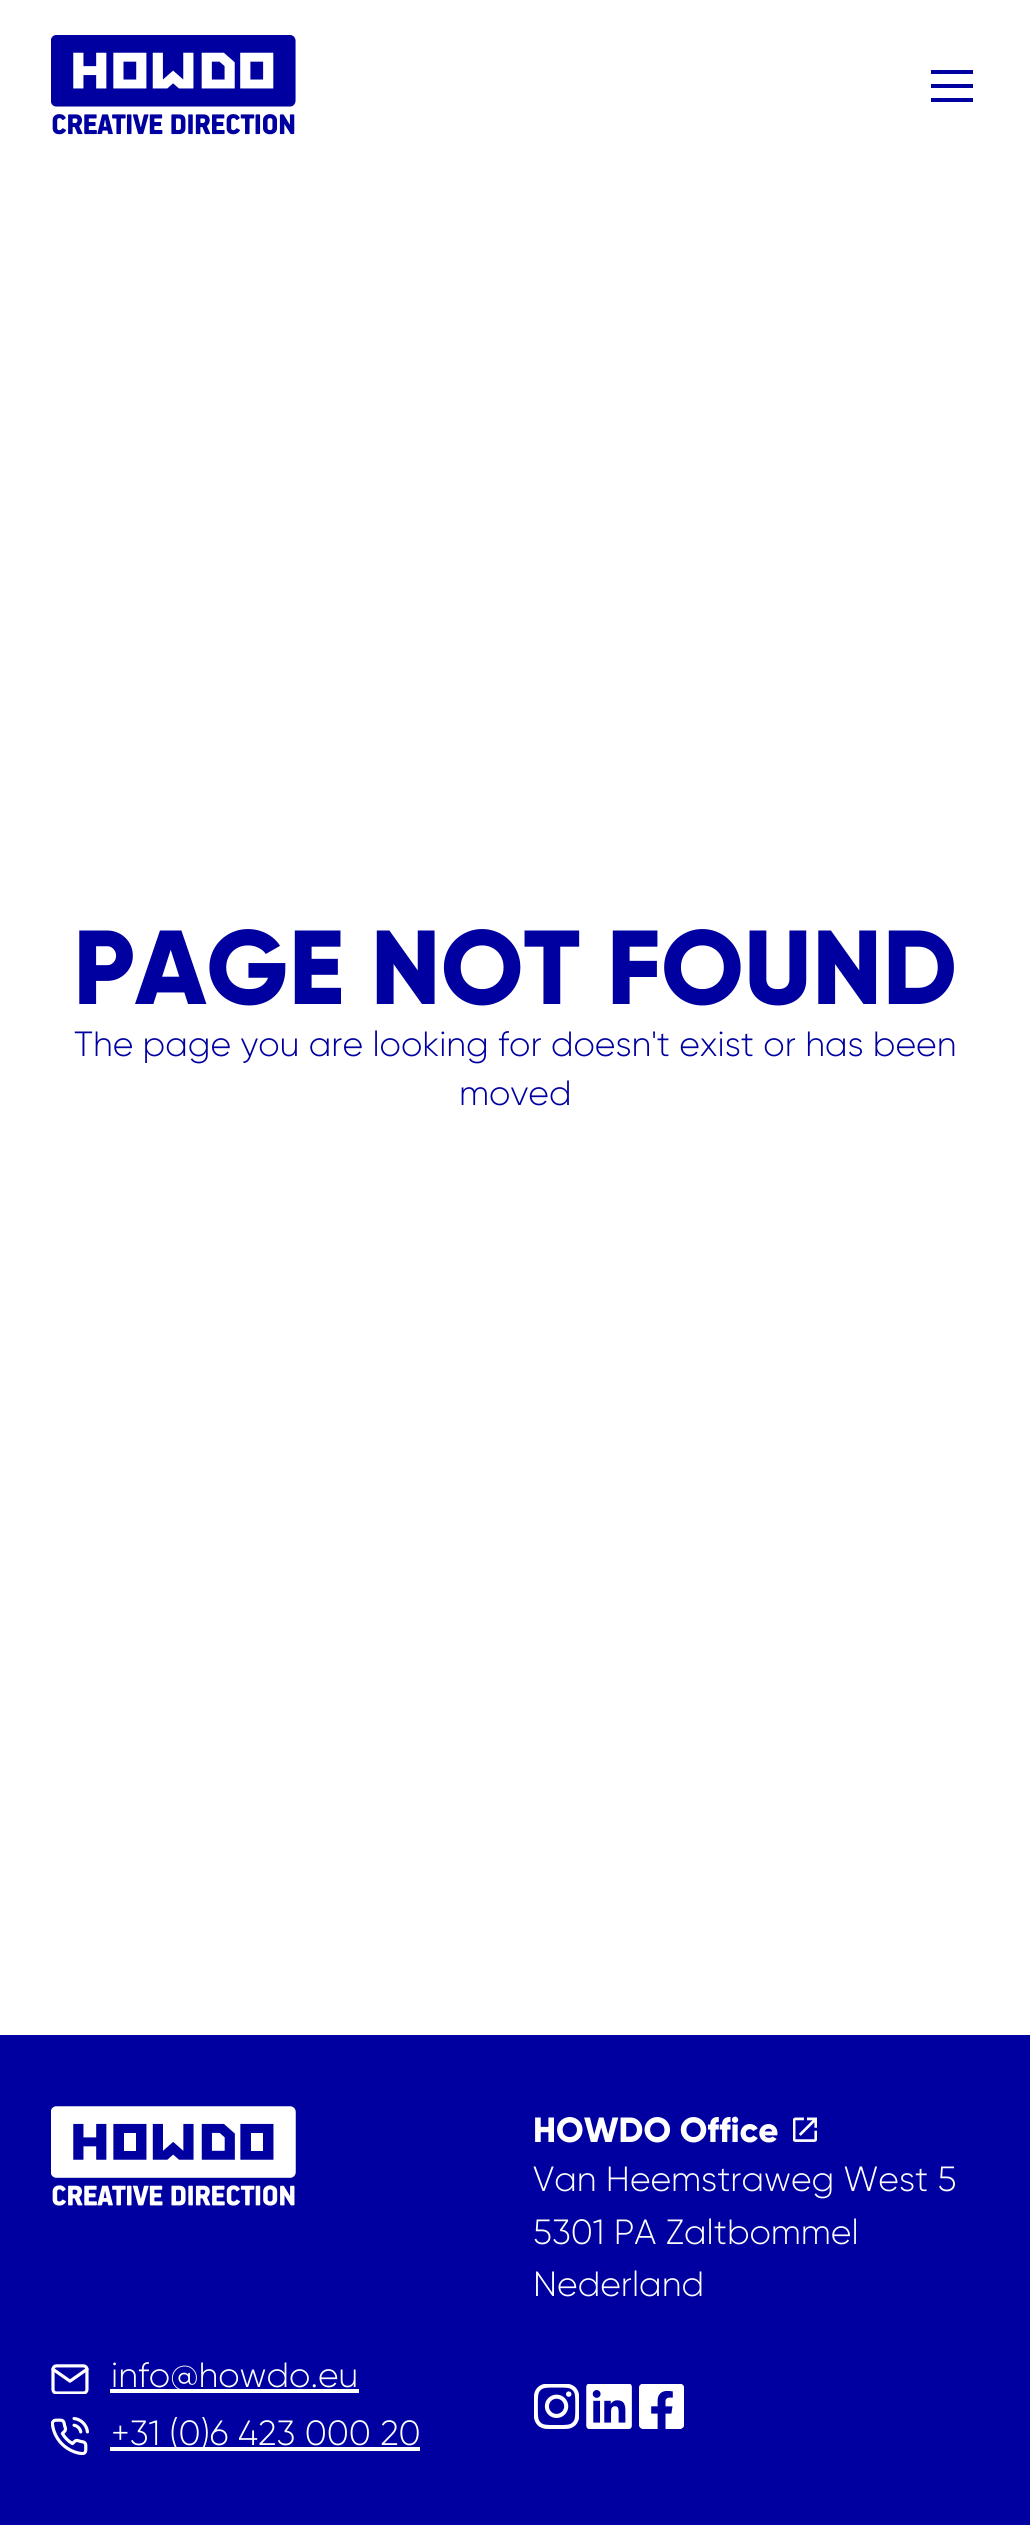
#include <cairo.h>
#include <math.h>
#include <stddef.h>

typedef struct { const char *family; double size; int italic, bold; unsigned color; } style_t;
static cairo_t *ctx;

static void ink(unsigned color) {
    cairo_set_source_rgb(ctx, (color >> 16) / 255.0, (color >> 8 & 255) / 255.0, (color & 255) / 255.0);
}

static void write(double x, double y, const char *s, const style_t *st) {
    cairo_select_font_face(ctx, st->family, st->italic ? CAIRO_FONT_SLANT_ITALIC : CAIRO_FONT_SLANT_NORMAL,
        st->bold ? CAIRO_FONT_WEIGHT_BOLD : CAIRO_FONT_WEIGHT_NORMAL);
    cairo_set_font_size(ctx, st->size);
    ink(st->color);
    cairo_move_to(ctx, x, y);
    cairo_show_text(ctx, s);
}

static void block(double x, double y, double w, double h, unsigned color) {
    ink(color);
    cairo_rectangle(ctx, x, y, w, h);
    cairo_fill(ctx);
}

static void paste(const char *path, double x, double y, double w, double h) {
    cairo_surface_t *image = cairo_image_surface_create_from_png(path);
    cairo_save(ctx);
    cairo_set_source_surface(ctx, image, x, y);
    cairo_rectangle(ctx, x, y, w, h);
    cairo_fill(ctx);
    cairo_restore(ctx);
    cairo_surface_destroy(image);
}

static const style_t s1 = {"Gilroy ExtraBold", 105, 0, 0, 0x0000a0};
static const style_t s2 = {"Gilroy Light", 35, 0, 0, 0x0000a0};
static const style_t s3 = {"Gilroy ExtraBold", 35, 0, 0, 0xffffff};
static const style_t s4 = {"Gilroy Light", 35, 0, 0, 0xffffff};

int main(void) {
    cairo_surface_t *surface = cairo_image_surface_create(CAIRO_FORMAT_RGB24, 1030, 2544);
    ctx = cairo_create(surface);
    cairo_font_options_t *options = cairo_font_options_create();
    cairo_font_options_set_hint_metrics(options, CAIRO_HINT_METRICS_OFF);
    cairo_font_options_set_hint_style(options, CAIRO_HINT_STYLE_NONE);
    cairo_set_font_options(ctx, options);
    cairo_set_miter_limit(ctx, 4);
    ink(0xffffff);
    cairo_paint(ctx);
    paste("pic1.png", 51, 35, 245, 100);
    block(931, 70, 42, 4, 0x0000a0);
    block(931, 84, 42, 4, 0x0000a0);
    block(931, 98, 42, 4, 0x0000a0);
    write(73, 1004, "PAGE NOT FOUND", &s1);
    write(74, 1056, "The page you are looking for doesn't exist or has been", &s2);
    write(459, 1105, "moved", &s2);
    block(0, 2035, 1030, 490, 0x0000a0);
    paste("pic2.png", 51, 2106, 245, 100);
    write(533, 2142, "HOWDO Office", &s3);
    paste("pic3.png", 793, 2117, 24, 25);
    write(533, 2191, "Van Heemstraweg West 5", &s4);
    write(533, 2244, "5301 PA Zaltbommel", &s4);
    write(533, 2296, "Nederland", &s4);
    paste("pic4.png", 51, 2364, 38, 30);
    block(110, 2389, 249, 4, 0xffffff);
    write(111, 2387, "info@howdo.eu", &s4);
    paste("pic5.png", 51, 2417, 38, 38);
    block(110, 2447, 310, 4, 0xffffff);
    write(111, 2445, "+31 (0)6 423 000 20", &s4);
    paste("pic6.png", 534, 2384, 45, 45);
    paste("pic7.png", 586, 2384, 46, 45);
    paste("pic8.png", 639, 2384, 45, 45);
    cairo_surface_write_to_png(surface, "screenshot.png");
    cairo_font_options_destroy(options);
    cairo_destroy(ctx);
    cairo_surface_destroy(surface);
    return 0;
}
